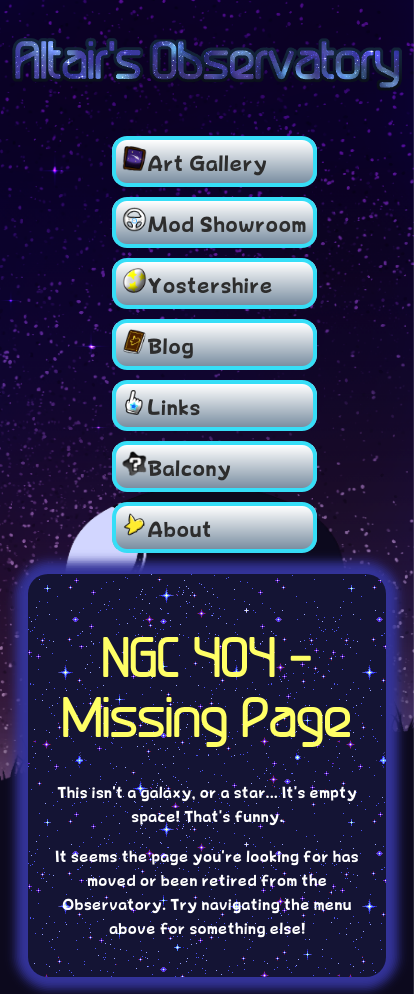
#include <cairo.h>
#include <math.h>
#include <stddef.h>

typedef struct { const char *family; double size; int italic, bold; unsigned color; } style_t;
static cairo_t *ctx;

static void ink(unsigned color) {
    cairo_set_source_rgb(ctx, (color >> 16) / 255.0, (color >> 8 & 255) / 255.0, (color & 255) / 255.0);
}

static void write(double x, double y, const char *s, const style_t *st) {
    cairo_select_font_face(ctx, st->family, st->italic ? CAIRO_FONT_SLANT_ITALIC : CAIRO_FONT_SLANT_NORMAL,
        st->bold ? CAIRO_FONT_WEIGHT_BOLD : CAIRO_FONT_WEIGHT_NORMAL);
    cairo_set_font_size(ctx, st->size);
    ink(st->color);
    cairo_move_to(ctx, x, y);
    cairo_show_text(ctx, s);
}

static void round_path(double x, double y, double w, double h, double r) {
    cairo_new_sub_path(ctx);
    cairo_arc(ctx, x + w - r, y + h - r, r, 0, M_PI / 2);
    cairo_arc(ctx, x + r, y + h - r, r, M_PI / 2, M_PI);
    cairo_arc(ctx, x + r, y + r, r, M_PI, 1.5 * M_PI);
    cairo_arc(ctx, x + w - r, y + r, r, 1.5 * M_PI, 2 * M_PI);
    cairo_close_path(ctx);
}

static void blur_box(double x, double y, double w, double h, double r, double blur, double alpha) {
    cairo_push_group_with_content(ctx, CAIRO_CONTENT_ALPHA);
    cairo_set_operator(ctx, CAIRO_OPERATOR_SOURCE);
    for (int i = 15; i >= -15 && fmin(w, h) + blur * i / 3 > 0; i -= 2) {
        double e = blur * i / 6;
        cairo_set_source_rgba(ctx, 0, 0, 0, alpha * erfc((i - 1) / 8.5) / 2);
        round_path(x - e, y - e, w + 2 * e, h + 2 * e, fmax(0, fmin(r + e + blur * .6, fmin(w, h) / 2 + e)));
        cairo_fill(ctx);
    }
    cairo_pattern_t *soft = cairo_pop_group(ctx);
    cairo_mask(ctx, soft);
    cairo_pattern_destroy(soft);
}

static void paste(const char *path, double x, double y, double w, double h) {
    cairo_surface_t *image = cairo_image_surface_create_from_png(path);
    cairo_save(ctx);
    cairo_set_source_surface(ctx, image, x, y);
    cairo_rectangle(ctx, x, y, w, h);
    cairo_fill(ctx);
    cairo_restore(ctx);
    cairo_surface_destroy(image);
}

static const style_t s1 = {"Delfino", 22, 0, 0, 0x2d2d2d};
static const style_t s2 = {"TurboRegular", 50, 0, 0, 0xffff66};
static const style_t s3 = {"Delfino", 16, 0, 0, 0xffffff};

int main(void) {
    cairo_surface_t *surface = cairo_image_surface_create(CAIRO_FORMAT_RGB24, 414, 994);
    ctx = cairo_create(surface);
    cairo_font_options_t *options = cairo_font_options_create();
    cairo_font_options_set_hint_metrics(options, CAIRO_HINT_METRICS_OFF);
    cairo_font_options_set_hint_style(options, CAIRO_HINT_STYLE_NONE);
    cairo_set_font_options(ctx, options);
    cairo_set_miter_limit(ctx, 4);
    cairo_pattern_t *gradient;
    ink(0xffffff);
    cairo_paint(ctx);
    paste("pic1.png", 0, 0, 414, 994);
    paste("pic2.png", 12, 38, 390, 53);
    cairo_save(ctx);
    round_path(112, 136, 205, 51, 15);
    cairo_clip(ctx);
    gradient = cairo_pattern_create_linear(215, 140, 215, 183);
    cairo_pattern_add_color_stop_rgba(gradient, 0, 1, 1, 1, 1);
    cairo_pattern_add_color_stop_rgba(gradient, 1, 0.478, 0.557, 0.631, 1);
    cairo_set_source(ctx, gradient);
    cairo_pattern_destroy(gradient);
    cairo_rectangle(ctx, 112, 140, 205, 43);
    cairo_fill(ctx);
    cairo_restore(ctx);
    round_path(114, 138, 201, 47, 13);
    ink(0x36def7);
    cairo_set_line_width(ctx, 4);
    cairo_stroke(ctx);
    paste("pic3.png", 122, 146, 25, 25);
    write(147, 171, "Art Gallery", &s1);
    cairo_save(ctx);
    round_path(112, 197, 205, 51, 15);
    cairo_clip(ctx);
    gradient = cairo_pattern_create_linear(215, 201, 215, 244);
    cairo_pattern_add_color_stop_rgba(gradient, 0, 1, 1, 1, 1);
    cairo_pattern_add_color_stop_rgba(gradient, 1, 0.478, 0.557, 0.631, 1);
    cairo_set_source(ctx, gradient);
    cairo_pattern_destroy(gradient);
    cairo_rectangle(ctx, 112, 201, 205, 43);
    cairo_fill(ctx);
    cairo_restore(ctx);
    round_path(114, 199, 201, 47, 13);
    ink(0x36def7);
    cairo_stroke(ctx);
    paste("pic4.png", 122, 207, 25, 25);
    write(147, 232, "Mod Showroom", &s1);
    cairo_save(ctx);
    round_path(112, 258, 205, 51, 15);
    cairo_clip(ctx);
    gradient = cairo_pattern_create_linear(215, 262, 215, 305);
    cairo_pattern_add_color_stop_rgba(gradient, 0, 1, 1, 1, 1);
    cairo_pattern_add_color_stop_rgba(gradient, 1, 0.478, 0.557, 0.631, 1);
    cairo_set_source(ctx, gradient);
    cairo_pattern_destroy(gradient);
    cairo_rectangle(ctx, 112, 262, 205, 43);
    cairo_fill(ctx);
    cairo_restore(ctx);
    round_path(114, 260, 201, 47, 13);
    ink(0x36def7);
    cairo_stroke(ctx);
    paste("pic5.png", 122, 268, 25, 25);
    write(147, 293, "Yostershire", &s1);
    cairo_save(ctx);
    round_path(112, 319, 205, 51, 15);
    cairo_clip(ctx);
    gradient = cairo_pattern_create_linear(215, 323, 215, 366);
    cairo_pattern_add_color_stop_rgba(gradient, 0, 1, 1, 1, 1);
    cairo_pattern_add_color_stop_rgba(gradient, 1, 0.478, 0.557, 0.631, 1);
    cairo_set_source(ctx, gradient);
    cairo_pattern_destroy(gradient);
    cairo_rectangle(ctx, 112, 323, 205, 43);
    cairo_fill(ctx);
    cairo_restore(ctx);
    round_path(114, 321, 201, 47, 13);
    ink(0x36def7);
    cairo_stroke(ctx);
    paste("pic6.png", 123, 329, 23, 25);
    write(147, 354, "Blog", &s1);
    cairo_save(ctx);
    round_path(112, 380, 205, 51, 15);
    cairo_clip(ctx);
    gradient = cairo_pattern_create_linear(215, 384, 215, 427);
    cairo_pattern_add_color_stop_rgba(gradient, 0, 1, 1, 1, 1);
    cairo_pattern_add_color_stop_rgba(gradient, 1, 0.478, 0.557, 0.631, 1);
    cairo_set_source(ctx, gradient);
    cairo_pattern_destroy(gradient);
    cairo_rectangle(ctx, 112, 384, 205, 43);
    cairo_fill(ctx);
    cairo_restore(ctx);
    round_path(114, 382, 201, 47, 13);
    ink(0x36def7);
    cairo_stroke(ctx);
    paste("pic7.png", 125, 390, 18, 25);
    write(147, 415, "Links", &s1);
    cairo_save(ctx);
    round_path(112, 441, 205, 51, 15);
    cairo_clip(ctx);
    gradient = cairo_pattern_create_linear(215, 445, 215, 488);
    cairo_pattern_add_color_stop_rgba(gradient, 0, 1, 1, 1, 1);
    cairo_pattern_add_color_stop_rgba(gradient, 1, 0.478, 0.557, 0.631, 1);
    cairo_set_source(ctx, gradient);
    cairo_pattern_destroy(gradient);
    cairo_rectangle(ctx, 112, 445, 205, 43);
    cairo_fill(ctx);
    cairo_restore(ctx);
    round_path(114, 443, 201, 47, 13);
    ink(0x36def7);
    cairo_stroke(ctx);
    paste("pic8.png", 122, 451, 25, 25);
    write(147, 476, "Balcony", &s1);
    cairo_save(ctx);
    round_path(112, 502, 205, 51, 15);
    cairo_clip(ctx);
    gradient = cairo_pattern_create_linear(215, 506, 215, 549);
    cairo_pattern_add_color_stop_rgba(gradient, 0, 1, 1, 1, 1);
    cairo_pattern_add_color_stop_rgba(gradient, 1, 0.478, 0.557, 0.631, 1);
    cairo_set_source(ctx, gradient);
    cairo_pattern_destroy(gradient);
    cairo_rectangle(ctx, 112, 506, 205, 43);
    cairo_fill(ctx);
    cairo_restore(ctx);
    round_path(114, 504, 201, 47, 13);
    ink(0x36def7);
    cairo_stroke(ctx);
    paste("pic9.png", 123, 513, 22, 23);
    write(147, 537, "About", &s1);
    ink(0x333399);
    blur_box(16, 562, 382, 427, 32, 5, 1);
    paste("pic10.png", 28, 574, 358, 403);
    write(102, 677, "NGC 404 -", &s2);
    write(62, 737, "Missing Page", &s2);
    write(57, 798, "This isn't a galaxy, or a star... It's empty", &s3);
    write(131, 822, "space! That's funny.", &s3);
    write(55, 862, "It seems the page you're looking for has", &s3);
    write(87, 886, "moved or been retired from the", &s3);
    write(62, 910, "Observatory. Try navigating the menu", &s3);
    write(109, 934, "above for something else!", &s3);
    cairo_surface_write_to_png(surface, "screenshot.png");
    cairo_font_options_destroy(options);
    cairo_destroy(ctx);
    cairo_surface_destroy(surface);
    return 0;
}
